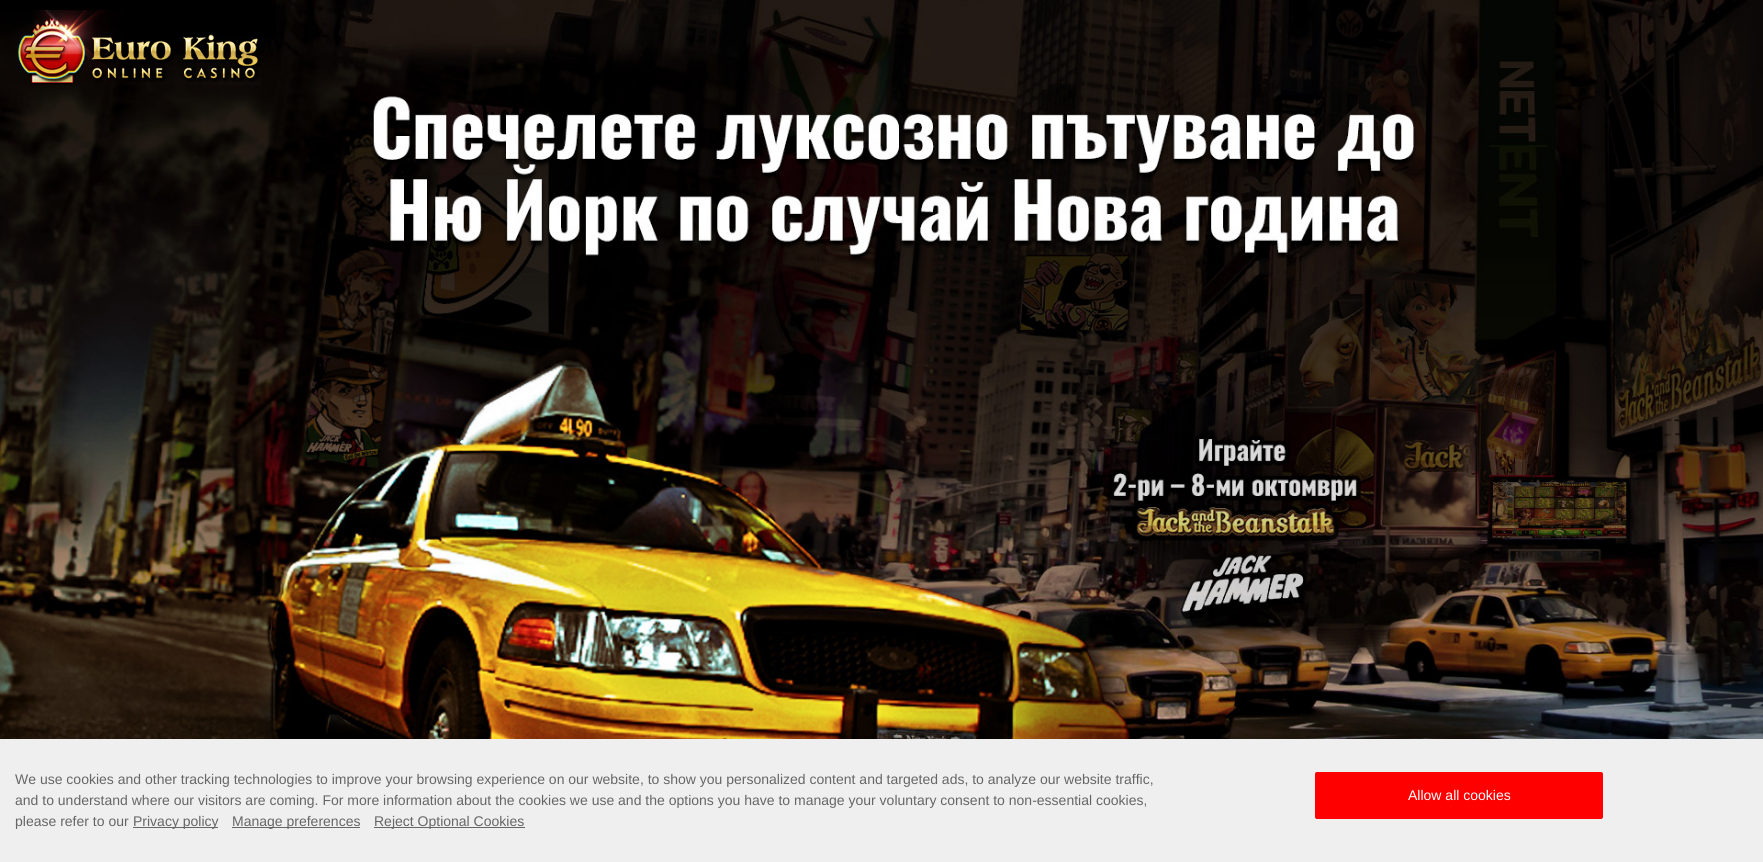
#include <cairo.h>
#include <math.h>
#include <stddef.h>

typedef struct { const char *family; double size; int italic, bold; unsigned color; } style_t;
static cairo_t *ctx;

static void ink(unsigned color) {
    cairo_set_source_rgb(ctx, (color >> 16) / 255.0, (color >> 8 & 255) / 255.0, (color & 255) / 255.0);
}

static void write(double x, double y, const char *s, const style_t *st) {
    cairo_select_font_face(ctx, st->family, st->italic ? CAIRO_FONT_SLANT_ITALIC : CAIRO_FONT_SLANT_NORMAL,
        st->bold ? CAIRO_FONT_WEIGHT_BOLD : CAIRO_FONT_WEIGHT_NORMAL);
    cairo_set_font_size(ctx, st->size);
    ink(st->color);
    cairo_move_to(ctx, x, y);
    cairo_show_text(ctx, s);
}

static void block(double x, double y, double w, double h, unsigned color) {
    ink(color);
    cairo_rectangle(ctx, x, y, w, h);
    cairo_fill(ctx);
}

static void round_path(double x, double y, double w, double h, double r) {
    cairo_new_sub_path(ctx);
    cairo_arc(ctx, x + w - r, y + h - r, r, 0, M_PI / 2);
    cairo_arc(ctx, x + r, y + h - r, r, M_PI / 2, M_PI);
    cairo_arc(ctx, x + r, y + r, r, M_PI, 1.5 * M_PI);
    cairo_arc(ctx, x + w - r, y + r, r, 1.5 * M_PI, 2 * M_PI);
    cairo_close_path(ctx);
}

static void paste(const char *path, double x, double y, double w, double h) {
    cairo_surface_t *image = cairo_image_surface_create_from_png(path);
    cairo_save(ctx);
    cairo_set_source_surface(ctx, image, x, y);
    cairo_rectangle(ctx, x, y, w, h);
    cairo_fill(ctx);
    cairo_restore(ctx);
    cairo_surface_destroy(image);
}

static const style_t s1 = {"Liberation Sans", 14, 0, 0, 0x666666};
static const style_t s2 = {"Liberation Sans", 14, 0, 0, 0xffffff};

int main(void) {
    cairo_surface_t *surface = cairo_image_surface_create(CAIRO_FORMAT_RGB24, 1763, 862);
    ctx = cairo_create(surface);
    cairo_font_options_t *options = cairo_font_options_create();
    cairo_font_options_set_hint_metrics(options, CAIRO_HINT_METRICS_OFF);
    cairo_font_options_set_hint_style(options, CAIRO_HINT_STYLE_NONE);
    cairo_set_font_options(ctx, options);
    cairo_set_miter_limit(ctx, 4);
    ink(0xffffff);
    cairo_paint(ctx);
    paste("pic1.png", 0, 0, 1763, 739);
    paste("pic2.png", 18, 10, 243, 75);
    block(0, 739, 1763, 123, 0xefefef);
    write(15, 784, "We use cookies and other tracking technologies to improve your browsing experience on our website, to show you personalized content and targeted ads, to analyze our website traffic,", &s1);
    write(15, 805, "and to understand where our visitors are coming. For more information about the cookies we use and the options you have to manage your voluntary consent to non-essential cookies,", &s1);
    write(15, 826, "please refer to our", &s1);
    block(133, 827, 85, 1, 0x666666);
    write(133, 826, "Privacy policy", &s1);
    block(232, 827, 128, 1, 0x666666);
    write(232, 826, "Manage preferences", &s1);
    block(374, 827, 151, 1, 0x666666);
    write(374, 826, "Reject Optional Cookies", &s1);
    ink(0xff0000);
    round_path(1315, 772, 288, 47, 2);
    cairo_fill(ctx);
    write(1408, 800, "Allow all cookies", &s2);
    cairo_surface_write_to_png(surface, "screenshot.png");
    cairo_font_options_destroy(options);
    cairo_destroy(ctx);
    cairo_surface_destroy(surface);
    return 0;
}
